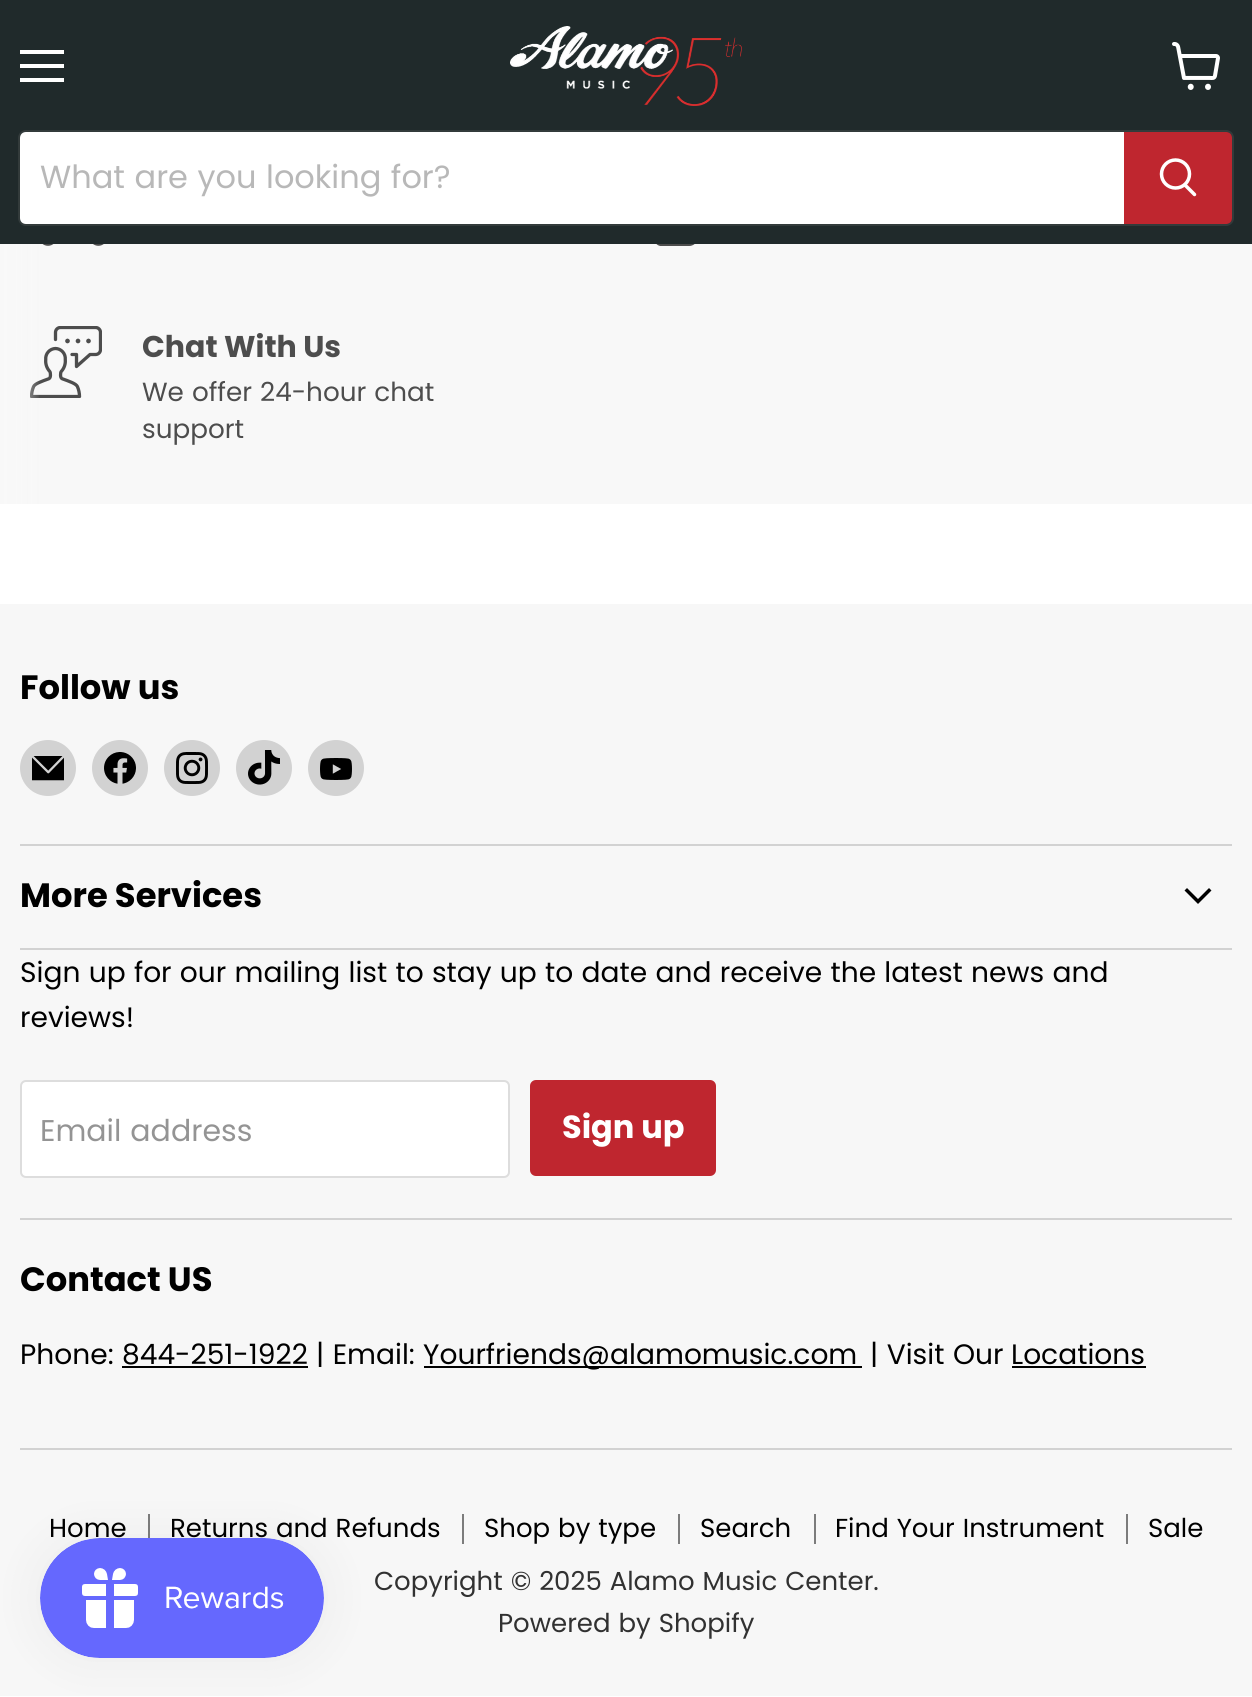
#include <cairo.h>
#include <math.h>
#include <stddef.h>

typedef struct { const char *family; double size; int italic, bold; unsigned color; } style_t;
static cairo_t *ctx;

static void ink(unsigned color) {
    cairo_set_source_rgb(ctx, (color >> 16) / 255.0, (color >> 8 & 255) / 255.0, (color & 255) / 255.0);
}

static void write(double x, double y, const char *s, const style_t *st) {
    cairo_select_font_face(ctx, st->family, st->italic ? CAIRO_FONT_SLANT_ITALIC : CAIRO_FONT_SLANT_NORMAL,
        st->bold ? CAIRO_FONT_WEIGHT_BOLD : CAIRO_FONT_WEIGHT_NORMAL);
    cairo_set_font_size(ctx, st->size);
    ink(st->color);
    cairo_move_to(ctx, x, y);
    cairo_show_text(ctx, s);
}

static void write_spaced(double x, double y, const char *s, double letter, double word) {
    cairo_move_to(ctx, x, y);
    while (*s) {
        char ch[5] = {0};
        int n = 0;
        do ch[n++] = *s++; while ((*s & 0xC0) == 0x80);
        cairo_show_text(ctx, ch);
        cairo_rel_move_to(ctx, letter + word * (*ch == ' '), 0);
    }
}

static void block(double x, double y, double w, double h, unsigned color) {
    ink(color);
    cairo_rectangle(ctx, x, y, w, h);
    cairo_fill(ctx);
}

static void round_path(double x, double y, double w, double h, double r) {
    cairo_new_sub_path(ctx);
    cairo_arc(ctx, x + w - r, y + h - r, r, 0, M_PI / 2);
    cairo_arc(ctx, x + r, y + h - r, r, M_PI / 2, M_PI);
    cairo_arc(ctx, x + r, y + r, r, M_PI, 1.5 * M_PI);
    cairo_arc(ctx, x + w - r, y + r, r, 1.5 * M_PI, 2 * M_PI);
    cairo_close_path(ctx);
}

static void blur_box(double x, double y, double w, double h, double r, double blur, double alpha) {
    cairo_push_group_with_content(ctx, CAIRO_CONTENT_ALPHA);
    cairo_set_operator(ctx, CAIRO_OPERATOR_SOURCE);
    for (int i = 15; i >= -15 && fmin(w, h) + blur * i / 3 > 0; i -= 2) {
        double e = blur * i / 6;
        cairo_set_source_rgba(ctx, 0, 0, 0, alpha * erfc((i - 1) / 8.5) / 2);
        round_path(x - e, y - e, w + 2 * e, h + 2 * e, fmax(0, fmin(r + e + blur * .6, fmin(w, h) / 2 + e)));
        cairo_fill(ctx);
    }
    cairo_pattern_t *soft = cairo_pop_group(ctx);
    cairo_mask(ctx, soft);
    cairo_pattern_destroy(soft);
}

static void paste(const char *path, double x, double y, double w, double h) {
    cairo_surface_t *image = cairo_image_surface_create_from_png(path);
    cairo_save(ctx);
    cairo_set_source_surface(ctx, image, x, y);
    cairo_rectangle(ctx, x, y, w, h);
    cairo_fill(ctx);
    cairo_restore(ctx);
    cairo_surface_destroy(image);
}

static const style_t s1 = {"Poppins", 30, 0, 1, 0x4d4d4d};
static const style_t s2 = {"Poppins", 26.25, 0, 0, 0x4d4d4d};
static const style_t s3 = {"Poppins", 33.75, 0, 1, 0x000000};
static const style_t s4 = {"Poppins", 28.1, 0, 0, 0x000000};
static const style_t s5 = {"Poppins", 32, 0, 1, 0xffffff};
static const style_t s6 = {"Poppins", 26, 0, 0, 0x000000};

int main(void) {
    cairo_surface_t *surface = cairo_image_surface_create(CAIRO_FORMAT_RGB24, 1252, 1697);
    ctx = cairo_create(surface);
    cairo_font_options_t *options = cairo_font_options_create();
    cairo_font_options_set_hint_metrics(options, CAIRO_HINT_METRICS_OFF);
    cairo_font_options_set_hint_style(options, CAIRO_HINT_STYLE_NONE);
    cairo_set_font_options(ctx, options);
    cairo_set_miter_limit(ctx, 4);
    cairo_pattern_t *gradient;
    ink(0xffffff);
    cairo_paint(ctx);
    block(0, 0, 1252, 244, 0x202a2b);
    block(20, 50, 44, 4, 0xffffff);
    block(20, 64, 44, 4, 0xffffff);
    block(20, 78, 44, 4, 0xffffff);
    paste("pic1.png", 1172, 42, 48, 48);
    paste("pic2.png", 510, 26, 232, 80);
    round_path(19, 131, 1214, 94, 7);
    cairo_set_source_rgba(ctx, 0.502, 0.502, 0.502, 0.2);
    cairo_stroke(ctx);
    ink(0xffffff);
    cairo_new_path(ctx);
    cairo_move_to(ctx, 26, 132);
    cairo_line_to(ctx, 1124, 132);
    cairo_line_to(ctx, 1124, 224);
    cairo_line_to(ctx, 26, 224);
    cairo_curve_to(ctx, 22.5, 224, 20, 221.5, 20, 218);
    cairo_line_to(ctx, 20, 138);
    cairo_curve_to(ctx, 20, 134.5, 22.5, 132, 26, 132);
    cairo_close_path(ctx);
    cairo_fill(ctx);
    cairo_select_font_face(ctx, "Poppins", CAIRO_FONT_SLANT_NORMAL, CAIRO_FONT_WEIGHT_NORMAL);
    cairo_set_font_size(ctx, 32);
    ink(0xb8b8b8);
    write_spaced(40, 188, "What are you looking for?", 0, 1);
    ink(0xbf262f);
    cairo_new_path(ctx);
    cairo_move_to(ctx, 1125, 133);
    cairo_line_to(ctx, 1226, 133);
    cairo_curve_to(ctx, 1229, 133, 1231, 135, 1231, 138);
    cairo_line_to(ctx, 1231, 218);
    cairo_curve_to(ctx, 1231, 221, 1229, 223, 1226, 223);
    cairo_line_to(ctx, 1125, 223);
    cairo_close_path(ctx);
    cairo_fill_preserve(ctx);
    cairo_stroke(ctx);
    cairo_new_path(ctx);
    cairo_move_to(ctx, 1194.5, 194.5);
    cairo_line_to(ctx, 1185, 185);
    ink(0xffffff);
    cairo_set_line_width(ctx, 3.5);
    cairo_set_line_cap(ctx, CAIRO_LINE_CAP_ROUND);
    cairo_stroke(ctx);
    cairo_arc(ctx, 1175.5, 174, 14, 0, 2 * M_PI);
    cairo_set_line_cap(ctx, CAIRO_LINE_CAP_BUTT);
    cairo_stroke(ctx);
    block(4, 244, 1248, 260, 0xf8f8f8);
    paste("pic5.png", 30, 326, 72, 72);
    gradient = cairo_pattern_create_linear(0, 311, 40, 311);
    cairo_pattern_add_color_stop_rgba(gradient, 0.1, 0.973, 0.973, 0.973, 1);
    cairo_pattern_add_color_stop_rgba(gradient, 1, 0.973, 0.973, 0.973, 0);
    cairo_set_source(ctx, gradient);
    cairo_pattern_destroy(gradient);
    cairo_rectangle(ctx, 0, 244, 39, 260);
    cairo_fill(ctx);
    paste("pic3.png", 42, 244, 62, 2);
    paste("pic4.png", 656, 244, 39, 2);
    write(142, 357, "Chat With Us", &s1);
    cairo_select_font_face(ctx, "Poppins", CAIRO_FONT_SLANT_NORMAL, CAIRO_FONT_WEIGHT_NORMAL);
    cairo_set_font_size(ctx, 26.25);
    write_spaced(142, 401, "We offer 24-hour chat", 0, 1);
    write(142, 438, "support", &s2);
    block(0, 604, 1252, 1092, 0xf7f7f7);
    block(20, 844, 1212, 2, 0xd2d2d2);
    write(20, 699, "Follow us", &s3);
    ink(0xd2d2d2);
    cairo_new_path(ctx);
    cairo_arc(ctx, 48, 768, 28, 0, 2 * M_PI);
    cairo_fill(ctx);
    paste("pic6.png", 32, 756, 32, 25);
    cairo_arc(ctx, 120, 768, 28, 0, 2 * M_PI);
    cairo_fill(ctx);
    paste("pic7.png", 104, 752, 32, 32);
    cairo_arc(ctx, 192, 768, 28, 0, 2 * M_PI);
    cairo_fill(ctx);
    paste("pic8.png", 176, 752, 32, 32);
    cairo_arc(ctx, 264, 768, 28, 0, 2 * M_PI);
    cairo_fill(ctx);
    paste("pic9.png", 248, 750, 32, 35);
    cairo_arc(ctx, 336, 768, 28, 0, 2 * M_PI);
    cairo_fill(ctx);
    paste("pic10.png", 320, 758, 32, 22);
    block(20, 948, 1212, 2, 0xd2d2d2);
    write(20, 907, "More Services", &s3);
    cairo_new_path(ctx);
    cairo_move_to(ctx, 1198, 901.5);
    cairo_line_to(ctx, 1209, 890.5);
    cairo_move_to(ctx, 1198, 901.5);
    cairo_line_to(ctx, 1187, 890.5);
    cairo_set_line_cap(ctx, CAIRO_LINE_CAP_SQUARE);
    cairo_stroke(ctx);
    block(20, 1218, 1212, 2, 0xd2d2d2);
    cairo_select_font_face(ctx, "Poppins", CAIRO_FONT_SLANT_NORMAL, CAIRO_FONT_WEIGHT_NORMAL);
    cairo_set_font_size(ctx, 28.1);
    ink(0x000000);
    write_spaced(20, 982, "Sign up for our mailing list to stay up to date and receive the latest news and", 0, 0.75);
    write(20, 1027, "reviews!", &s4);
    ink(0xffffff);
    round_path(21, 1081, 488, 96, 5);
    cairo_fill_preserve(ctx);
    ink(0xdddddd);
    cairo_set_line_width(ctx, 2);
    cairo_set_line_cap(ctx, CAIRO_LINE_CAP_BUTT);
    cairo_stroke(ctx);
    cairo_set_font_size(ctx, 30);
    ink(0x949494);
    write_spaced(40, 1141, "Email address", 0, 1);
    ink(0xbf262f);
    round_path(531, 1081, 184, 94, 5);
    cairo_fill_preserve(ctx);
    cairo_stroke(ctx);
    write(562, 1138, "Sign up", &s5);
    block(20, 1448, 1212, 2, 0xd2d2d2);
    write(20, 1291, "Contact US", &s3);
    write(20, 1364, "Phone:", &s4);
    write(122, 1364, "844-251-1922", &s4);
    block(122, 1366, 186, 2, 0x000000);
    write_spaced(316, 1364, "| Email:", 0, 1);
    block(424, 1366, 438, 2, 0x000000);
    write(423, 1364, "Yourfriends@alamomusic.com", &s4);
    write_spaced(870, 1364, "| Visit Our", 0, 1);
    write(1011, 1364, "Locations", &s4);
    block(1012, 1366, 134, 2, 0x000000);
    block(148, 1514, 2, 30, 0x7c7c7c);
    write(49, 1537, "Home", &s6);
    block(462, 1514, 2, 30, 0x7c7c7c);
    ink(0x000000);
    write_spaced(170, 1537, "Returns and Refunds", 0, 1);
    block(678, 1514, 2, 30, 0x7c7c7c);
    ink(0x000000);
    write_spaced(484, 1537, "Shop by type", 0, 1);
    block(814, 1514, 2, 30, 0x7c7c7c);
    write(700, 1537, "Search", &s6);
    block(1126, 1514, 2, 30, 0x7c7c7c);
    ink(0x000000);
    write_spaced(835, 1537, "Find Your Instrument", 0, 1);
    write(1148, 1537, "Sale", &s6);
    ink(0x313131);
    write_spaced(374, 1590, "Copyright © 2025 Alamo Music Center.", 0, 1);
    write_spaced(498, 1632, "Powered by Shopify", 0, 1);
    ink(0x000000);
    blur_box(40, 1538, 284, 120, 60, 25, 0.05);
    paste("pic11.png", 40, 1538, 284, 120);
    cairo_surface_write_to_png(surface, "screenshot.png");
    cairo_font_options_destroy(options);
    cairo_destroy(ctx);
    cairo_surface_destroy(surface);
    return 0;
}
